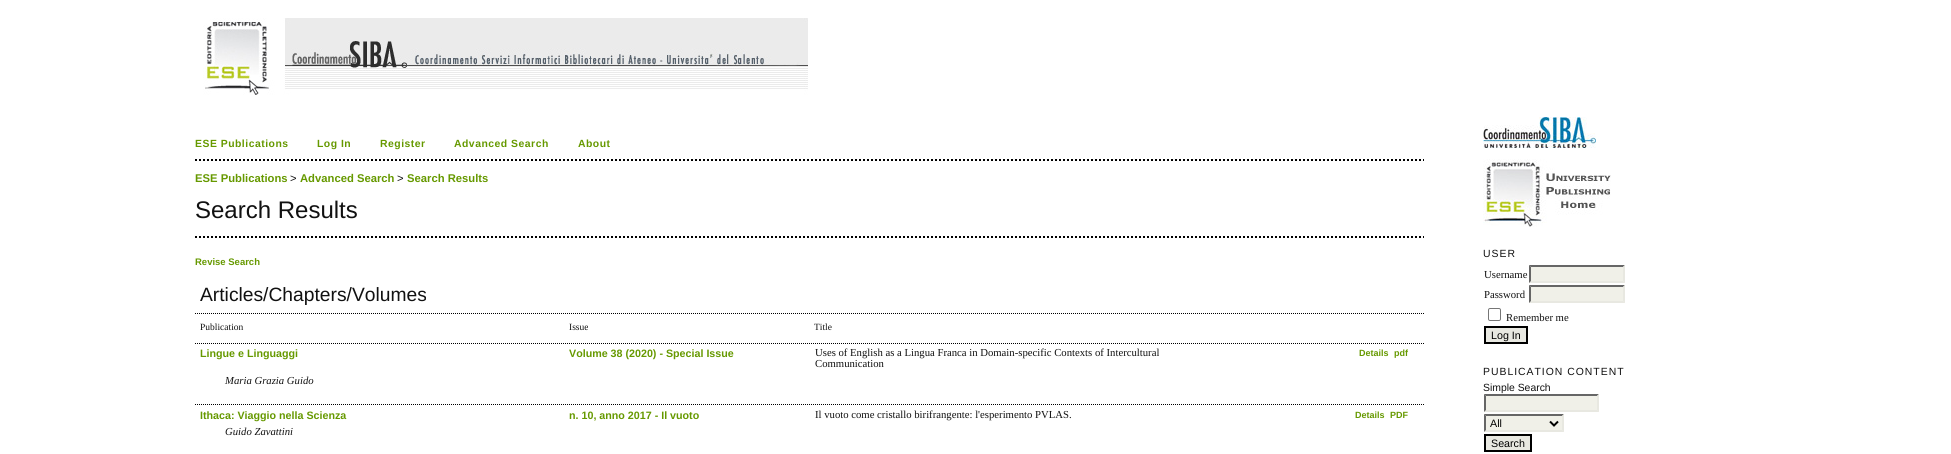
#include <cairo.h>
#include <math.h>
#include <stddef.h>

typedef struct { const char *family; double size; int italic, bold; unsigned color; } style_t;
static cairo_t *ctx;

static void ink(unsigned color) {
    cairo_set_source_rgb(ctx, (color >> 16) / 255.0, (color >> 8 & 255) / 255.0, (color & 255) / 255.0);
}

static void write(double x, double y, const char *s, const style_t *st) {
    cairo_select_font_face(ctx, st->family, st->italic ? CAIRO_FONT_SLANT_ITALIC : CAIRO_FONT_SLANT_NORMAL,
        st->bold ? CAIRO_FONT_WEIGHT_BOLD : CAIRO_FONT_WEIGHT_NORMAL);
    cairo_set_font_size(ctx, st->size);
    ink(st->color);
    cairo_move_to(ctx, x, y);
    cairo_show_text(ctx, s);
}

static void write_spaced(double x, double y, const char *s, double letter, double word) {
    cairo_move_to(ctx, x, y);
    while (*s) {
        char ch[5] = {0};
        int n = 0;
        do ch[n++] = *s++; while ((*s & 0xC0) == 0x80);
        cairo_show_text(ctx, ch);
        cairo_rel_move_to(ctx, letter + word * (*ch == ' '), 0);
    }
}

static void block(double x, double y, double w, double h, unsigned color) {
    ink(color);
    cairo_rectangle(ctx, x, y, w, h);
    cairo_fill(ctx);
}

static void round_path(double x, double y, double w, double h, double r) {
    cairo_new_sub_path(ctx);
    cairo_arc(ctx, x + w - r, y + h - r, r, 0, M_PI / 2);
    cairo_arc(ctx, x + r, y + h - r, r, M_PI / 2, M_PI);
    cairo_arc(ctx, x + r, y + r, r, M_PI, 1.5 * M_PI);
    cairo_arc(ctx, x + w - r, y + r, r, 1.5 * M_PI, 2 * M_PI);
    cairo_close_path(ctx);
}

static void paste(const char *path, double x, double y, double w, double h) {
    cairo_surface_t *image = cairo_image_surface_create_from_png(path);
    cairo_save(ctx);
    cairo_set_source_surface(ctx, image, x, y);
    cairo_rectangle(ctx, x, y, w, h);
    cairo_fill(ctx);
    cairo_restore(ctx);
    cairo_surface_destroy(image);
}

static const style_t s1 = {"Liberation Sans", 11.25, 0, 1, 0x669900};
static const style_t s2 = {"Liberation Sans", 11.25, 0, 0, 0x111111};
static const style_t s3 = {"Liberation Sans", 24, 0, 0, 0x111111};
static const style_t s4 = {"Liberation Sans", 9.5, 0, 1, 0x669900};
static const style_t s5 = {"Liberation Sans", 19.25, 0, 0, 0x111111};
static const style_t s6 = {"Liberation Serif", 9.5, 0, 0, 0x111111};
static const style_t s7 = {"Liberation Sans", 10.7, 0, 1, 0x669900};
static const style_t s8 = {"Liberation Serif", 10.7, 0, 0, 0x111111};
static const style_t s9 = {"Liberation Sans", 9, 0, 1, 0x669900};
static const style_t s10 = {"Liberation Serif", 10.7, 1, 0, 0x111111};
static const style_t s11 = {"Liberation Sans", 10.7, 0, 0, 0x000000};
static const style_t s12 = {"Liberation Sans", 10.4, 0, 0, 0x111111};

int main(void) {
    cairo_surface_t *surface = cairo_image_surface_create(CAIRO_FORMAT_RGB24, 1951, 454);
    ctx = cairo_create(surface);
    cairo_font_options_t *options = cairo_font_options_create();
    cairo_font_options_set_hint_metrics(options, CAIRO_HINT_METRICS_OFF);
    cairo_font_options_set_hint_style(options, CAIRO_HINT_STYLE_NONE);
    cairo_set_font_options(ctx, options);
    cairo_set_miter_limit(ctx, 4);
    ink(0xffffff);
    cairo_paint(ctx);
    paste("pic1.png", 203, 18, 605, 77);
    cairo_new_path(ctx);
    cairo_move_to(ctx, 195, 160);
    cairo_line_to(ctx, 1424, 160);
    ink(0x000000);
    cairo_set_dash(ctx, (double[]){2, 2}, 2, 0);
    cairo_stroke(ctx);
    cairo_select_font_face(ctx, "Liberation Sans", CAIRO_FONT_SLANT_NORMAL, CAIRO_FONT_WEIGHT_BOLD);
    cairo_set_font_size(ctx, 10.4);
    ink(0x669900);
    write_spaced(195, 147, "ESE Publications", 0.5, 0);
    write_spaced(317, 147, "Log In", 0.5, 0);
    write_spaced(380, 147, "Register", 0.5, 0);
    write_spaced(454, 147, "Advanced Search", 0.5, 0);
    write_spaced(578, 147, "About", 0.5, 0);
    write(195, 182, "ESE Publications", &s1);
    write(290, 182, ">", &s2);
    write(300, 182, "Advanced Search", &s1);
    write(397, 182, ">", &s2);
    write(407, 182, "Search Results", &s1);
    write(195, 218, "Search Results", &s3);
    cairo_new_path(ctx);
    cairo_move_to(ctx, 195, 237);
    cairo_line_to(ctx, 1424, 237);
    ink(0x000000);
    cairo_stroke(ctx);
    write(195, 265, "Revise Search", &s4);
    write(200, 301, "Articles/Chapters/Volumes", &s5);
    cairo_new_path(ctx);
    cairo_move_to(ctx, 195, 313.5);
    cairo_line_to(ctx, 1424, 313.5);
    ink(0x000000);
    cairo_set_line_width(ctx, 1);
    cairo_set_dash(ctx, (double[]){1, 1}, 2, 0);
    cairo_stroke(ctx);
    write(200, 330, "Publication", &s6);
    write(569, 330, "Issue", &s6);
    write(814, 330, "Title", &s6);
    cairo_new_path(ctx);
    cairo_move_to(ctx, 195, 343.5);
    cairo_line_to(ctx, 1424, 343.5);
    ink(0x000000);
    cairo_stroke(ctx);
    write(200, 357, "Lingue e Linguaggi", &s7);
    write(569, 357, "Volume 38 (2020) - Special Issue", &s7);
    write(815, 356, "Uses of English as a Lingua Franca in Domain-specific Contexts of Intercultural", &s8);
    write(815, 367, "Communication", &s8);
    write(1359, 356, "Details", &s9);
    write(1394, 356, "pdf", &s9);
    write(225, 384, "Maria Grazia Guido", &s10);
    cairo_new_path(ctx);
    cairo_move_to(ctx, 195, 404.5);
    cairo_line_to(ctx, 1424, 404.5);
    ink(0x000000);
    cairo_stroke(ctx);
    write(200, 419, "Ithaca: Viaggio nella Scienza", &s7);
    write(569, 419, "n. 10, anno 2017 - Il vuoto", &s7);
    write(815, 418, "Il vuoto come cristallo birifrangente: l'esperimento PVLAS.", &s8);
    write(1355, 418, "Details", &s9);
    write(1390, 418, "PDF", &s9);
    write(225, 435, "Guido Zavattini", &s10);
    paste("pic2.png", 1483, 117, 113, 31);
    paste("pic3.png", 1483, 159, 128, 68);
    cairo_select_font_face(ctx, "Liberation Sans", CAIRO_FONT_SLANT_NORMAL, CAIRO_FONT_WEIGHT_NORMAL);
    cairo_set_font_size(ctx, 10.4);
    write_spaced(1483, 257, "USER", 1, 0);
    write(1484, 278, "Username", &s8);
    block(1529, 265, 96, 18, 0xf0f0e8);
    ink(0x666666);
    cairo_new_path(ctx);
    cairo_move_to(ctx, 1529, 265);
    cairo_line_to(ctx, 1625, 265);
    cairo_line_to(ctx, 1623, 267);
    cairo_line_to(ctx, 1531, 267);
    cairo_close_path(ctx);
    cairo_fill(ctx);
    ink(0xe8e8e1);
    cairo_new_path(ctx);
    cairo_move_to(ctx, 1625, 265);
    cairo_line_to(ctx, 1625, 283);
    cairo_line_to(ctx, 1623, 281);
    cairo_line_to(ctx, 1623, 267);
    cairo_close_path(ctx);
    cairo_fill(ctx);
    cairo_new_path(ctx);
    cairo_move_to(ctx, 1625, 283);
    cairo_line_to(ctx, 1529, 283);
    cairo_line_to(ctx, 1531, 281);
    cairo_line_to(ctx, 1623, 281);
    cairo_close_path(ctx);
    cairo_fill(ctx);
    ink(0x666666);
    cairo_new_path(ctx);
    cairo_move_to(ctx, 1529, 283);
    cairo_line_to(ctx, 1529, 265);
    cairo_line_to(ctx, 1531, 267);
    cairo_line_to(ctx, 1531, 281);
    cairo_close_path(ctx);
    cairo_fill(ctx);
    write(1484, 298, "Password", &s8);
    block(1529, 285, 96, 18, 0xf0f0e8);
    ink(0x666666);
    cairo_new_path(ctx);
    cairo_move_to(ctx, 1529, 285);
    cairo_line_to(ctx, 1625, 285);
    cairo_line_to(ctx, 1623, 287);
    cairo_line_to(ctx, 1531, 287);
    cairo_close_path(ctx);
    cairo_fill(ctx);
    ink(0xe8e8e1);
    cairo_new_path(ctx);
    cairo_move_to(ctx, 1625, 285);
    cairo_line_to(ctx, 1625, 303);
    cairo_line_to(ctx, 1623, 301);
    cairo_line_to(ctx, 1623, 287);
    cairo_close_path(ctx);
    cairo_fill(ctx);
    cairo_new_path(ctx);
    cairo_move_to(ctx, 1625, 303);
    cairo_line_to(ctx, 1529, 303);
    cairo_line_to(ctx, 1531, 301);
    cairo_line_to(ctx, 1623, 301);
    cairo_close_path(ctx);
    cairo_fill(ctx);
    ink(0x666666);
    cairo_new_path(ctx);
    cairo_move_to(ctx, 1529, 303);
    cairo_line_to(ctx, 1529, 285);
    cairo_line_to(ctx, 1531, 287);
    cairo_line_to(ctx, 1531, 301);
    cairo_close_path(ctx);
    cairo_fill(ctx);
    round_path(1488.5, 308.5, 12, 12, 1.5);
    ink(0x767676);
    cairo_set_dash(ctx, NULL, 0, 0);
    cairo_stroke(ctx);
    write(1506, 321, "Remember me", &s8);
    ink(0xe8e8e1);
    cairo_rectangle(ctx, 1485, 327, 42, 16);
    cairo_fill_preserve(ctx);
    ink(0x000000);
    cairo_set_line_width(ctx, 2);
    cairo_stroke(ctx);
    write(1491, 339, "Log In", &s11);
    cairo_set_font_size(ctx, 10.4);
    ink(0x111111);
    write_spaced(1483, 375, "PUBLICATION CONTENT", 1, 0);
    write(1483, 391, "Simple Search", &s12);
    block(1484, 394, 115, 18, 0xf0f0e8);
    ink(0x666666);
    cairo_new_path(ctx);
    cairo_move_to(ctx, 1484, 394);
    cairo_line_to(ctx, 1599, 394);
    cairo_line_to(ctx, 1597, 396);
    cairo_line_to(ctx, 1486, 396);
    cairo_close_path(ctx);
    cairo_fill(ctx);
    ink(0xe8e8e1);
    cairo_new_path(ctx);
    cairo_move_to(ctx, 1599, 394);
    cairo_line_to(ctx, 1599, 412);
    cairo_line_to(ctx, 1597, 410);
    cairo_line_to(ctx, 1597, 396);
    cairo_close_path(ctx);
    cairo_fill(ctx);
    cairo_new_path(ctx);
    cairo_move_to(ctx, 1599, 412);
    cairo_line_to(ctx, 1484, 412);
    cairo_line_to(ctx, 1486, 410);
    cairo_line_to(ctx, 1597, 410);
    cairo_close_path(ctx);
    cairo_fill(ctx);
    ink(0x666666);
    cairo_new_path(ctx);
    cairo_move_to(ctx, 1484, 412);
    cairo_line_to(ctx, 1484, 394);
    cairo_line_to(ctx, 1486, 396);
    cairo_line_to(ctx, 1486, 410);
    cairo_close_path(ctx);
    cairo_fill(ctx);
    block(1484, 414, 80, 18, 0xf0f0e8);
    ink(0x666666);
    cairo_new_path(ctx);
    cairo_move_to(ctx, 1484, 414);
    cairo_line_to(ctx, 1564, 414);
    cairo_line_to(ctx, 1562, 416);
    cairo_line_to(ctx, 1486, 416);
    cairo_close_path(ctx);
    cairo_fill(ctx);
    ink(0xe8e8e1);
    cairo_new_path(ctx);
    cairo_move_to(ctx, 1564, 414);
    cairo_line_to(ctx, 1564, 432);
    cairo_line_to(ctx, 1562, 430);
    cairo_line_to(ctx, 1562, 416);
    cairo_close_path(ctx);
    cairo_fill(ctx);
    cairo_new_path(ctx);
    cairo_move_to(ctx, 1564, 432);
    cairo_line_to(ctx, 1484, 432);
    cairo_line_to(ctx, 1486, 430);
    cairo_line_to(ctx, 1562, 430);
    cairo_close_path(ctx);
    cairo_fill(ctx);
    ink(0x666666);
    cairo_new_path(ctx);
    cairo_move_to(ctx, 1484, 432);
    cairo_line_to(ctx, 1484, 414);
    cairo_line_to(ctx, 1486, 416);
    cairo_line_to(ctx, 1486, 430);
    cairo_close_path(ctx);
    cairo_fill(ctx);
    cairo_new_path(ctx);
    cairo_move_to(ctx, 1550, 421.5);
    cairo_line_to(ctx, 1554, 425.5);
    cairo_line_to(ctx, 1558, 421.5);
    ink(0x000000);
    cairo_stroke(ctx);
    write(1490, 427, "All", &s11);
    ink(0xe8e8e1);
    cairo_rectangle(ctx, 1485, 435, 46, 16);
    cairo_fill_preserve(ctx);
    ink(0x000000);
    cairo_stroke(ctx);
    write(1491, 447, "Search", &s11);
    cairo_surface_write_to_png(surface, "screenshot.png");
    cairo_font_options_destroy(options);
    cairo_destroy(ctx);
    cairo_surface_destroy(surface);
    return 0;
}
